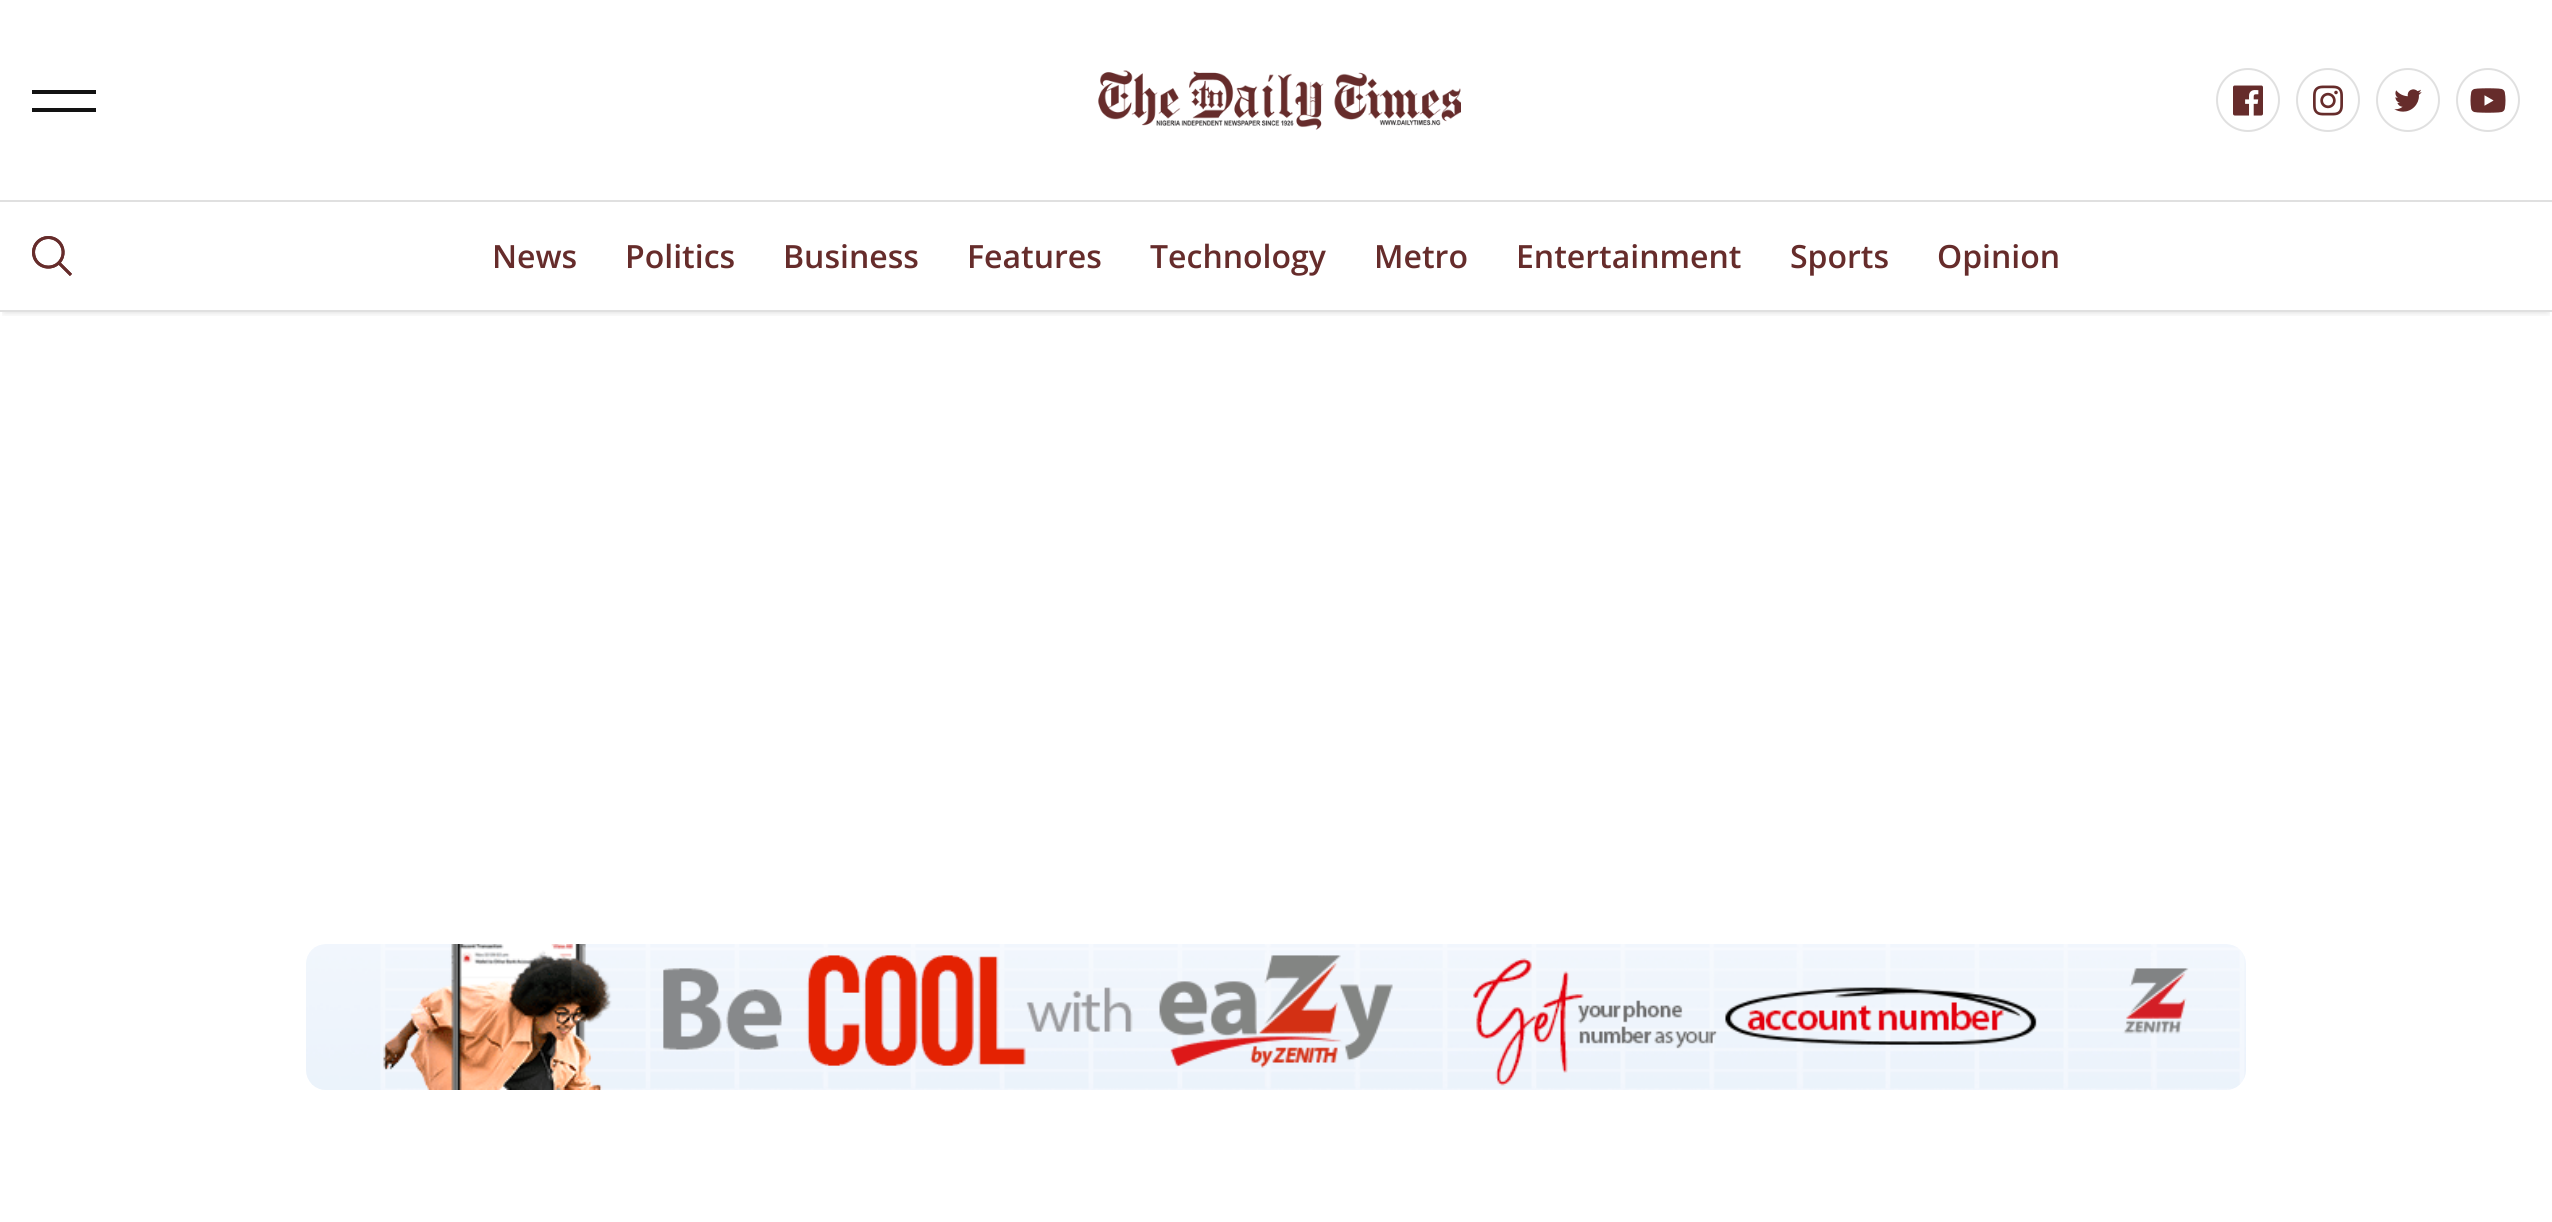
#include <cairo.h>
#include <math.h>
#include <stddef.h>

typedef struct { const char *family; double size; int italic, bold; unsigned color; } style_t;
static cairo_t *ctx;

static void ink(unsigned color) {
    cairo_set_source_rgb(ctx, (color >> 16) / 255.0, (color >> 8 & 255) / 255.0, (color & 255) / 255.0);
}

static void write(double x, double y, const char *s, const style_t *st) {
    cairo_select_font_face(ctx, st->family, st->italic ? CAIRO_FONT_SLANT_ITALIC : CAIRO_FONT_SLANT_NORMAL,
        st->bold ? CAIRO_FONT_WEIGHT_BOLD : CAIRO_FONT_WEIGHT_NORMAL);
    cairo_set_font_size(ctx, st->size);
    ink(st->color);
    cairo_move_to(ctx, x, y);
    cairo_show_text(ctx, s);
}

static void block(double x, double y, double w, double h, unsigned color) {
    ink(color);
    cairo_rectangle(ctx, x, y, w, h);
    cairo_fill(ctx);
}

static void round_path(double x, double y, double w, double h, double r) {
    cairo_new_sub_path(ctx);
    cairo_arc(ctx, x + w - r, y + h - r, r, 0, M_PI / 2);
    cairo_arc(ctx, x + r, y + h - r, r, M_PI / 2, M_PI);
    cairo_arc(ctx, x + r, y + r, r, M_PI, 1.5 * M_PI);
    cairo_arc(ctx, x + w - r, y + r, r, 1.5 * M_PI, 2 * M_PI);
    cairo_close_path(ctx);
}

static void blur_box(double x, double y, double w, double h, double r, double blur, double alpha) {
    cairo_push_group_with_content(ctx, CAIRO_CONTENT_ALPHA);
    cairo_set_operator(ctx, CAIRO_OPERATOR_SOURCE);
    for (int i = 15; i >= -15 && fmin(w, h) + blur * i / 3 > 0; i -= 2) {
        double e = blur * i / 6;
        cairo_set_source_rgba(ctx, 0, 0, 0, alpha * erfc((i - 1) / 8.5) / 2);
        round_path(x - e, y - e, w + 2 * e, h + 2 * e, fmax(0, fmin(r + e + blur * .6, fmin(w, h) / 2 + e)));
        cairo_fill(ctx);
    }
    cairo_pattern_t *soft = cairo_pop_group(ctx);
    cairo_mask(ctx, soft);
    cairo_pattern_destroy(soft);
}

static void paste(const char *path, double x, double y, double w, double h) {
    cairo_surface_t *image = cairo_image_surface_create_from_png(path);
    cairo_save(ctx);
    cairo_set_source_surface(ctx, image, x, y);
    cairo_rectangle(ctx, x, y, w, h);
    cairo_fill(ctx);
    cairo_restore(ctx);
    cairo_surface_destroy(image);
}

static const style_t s1 = {"Open Sans SemiBold", 32, 0, 0, 0x662c2b};

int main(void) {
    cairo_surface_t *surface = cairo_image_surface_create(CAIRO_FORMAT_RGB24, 2552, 1222);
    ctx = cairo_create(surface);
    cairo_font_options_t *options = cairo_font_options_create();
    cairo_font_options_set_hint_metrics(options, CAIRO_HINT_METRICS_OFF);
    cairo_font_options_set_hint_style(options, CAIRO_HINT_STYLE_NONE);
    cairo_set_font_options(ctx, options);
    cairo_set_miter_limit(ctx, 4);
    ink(0xffffff);
    cairo_paint(ctx);
    cairo_save(ctx);
    cairo_rectangle(ctx, 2, 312, 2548, 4);
    cairo_clip(ctx);
    ink(0x000000);
    blur_box(4, 8, 2544, 304, 0, 4, 0.15);
    cairo_restore(ctx);
    block(32, 90, 64, 4, 0x121212);
    block(32, 108, 64, 4, 0x121212);
    paste("pic1.png", 1098, 70, 363, 60);
    cairo_arc(ctx, 2248, 100, 31, 0, 2 * M_PI);
    ink(0xe0e0e0);
    cairo_stroke(ctx);
    paste("pic2.png", 2233, 85, 30, 31);
    cairo_arc(ctx, 2328, 100, 31, 0, 2 * M_PI);
    cairo_stroke(ctx);
    paste("pic3.png", 2313, 85, 30, 31);
    cairo_arc(ctx, 2408, 100, 31, 0, 2 * M_PI);
    cairo_stroke(ctx);
    paste("pic4.png", 2394, 89, 28, 23);
    cairo_arc(ctx, 2488, 100, 31, 0, 2 * M_PI);
    cairo_stroke(ctx);
    paste("pic5.png", 2470, 88, 36, 25);
    block(0, 200, 2552, 2, 0xe0e0e0);
    block(0, 310, 2552, 2, 0xe0e0e0);
    paste("pic6.png", 32, 236, 40, 40);
    write(492, 268, "News", &s1);
    write(625, 268, "Politics", &s1);
    write(783, 268, "Business", &s1);
    write(967, 268, "Features", &s1);
    write(1150, 268, "Technology", &s1);
    write(1374, 268, "Metro", &s1);
    write(1516, 268, "Entertainment", &s1);
    write(1790, 268, "Sports", &s1);
    write(1937, 268, "Opinion", &s1);
    paste("pic7.png", 306, 944, 1940, 146);
    cairo_surface_write_to_png(surface, "screenshot.png");
    cairo_font_options_destroy(options);
    cairo_destroy(ctx);
    cairo_surface_destroy(surface);
    return 0;
}
